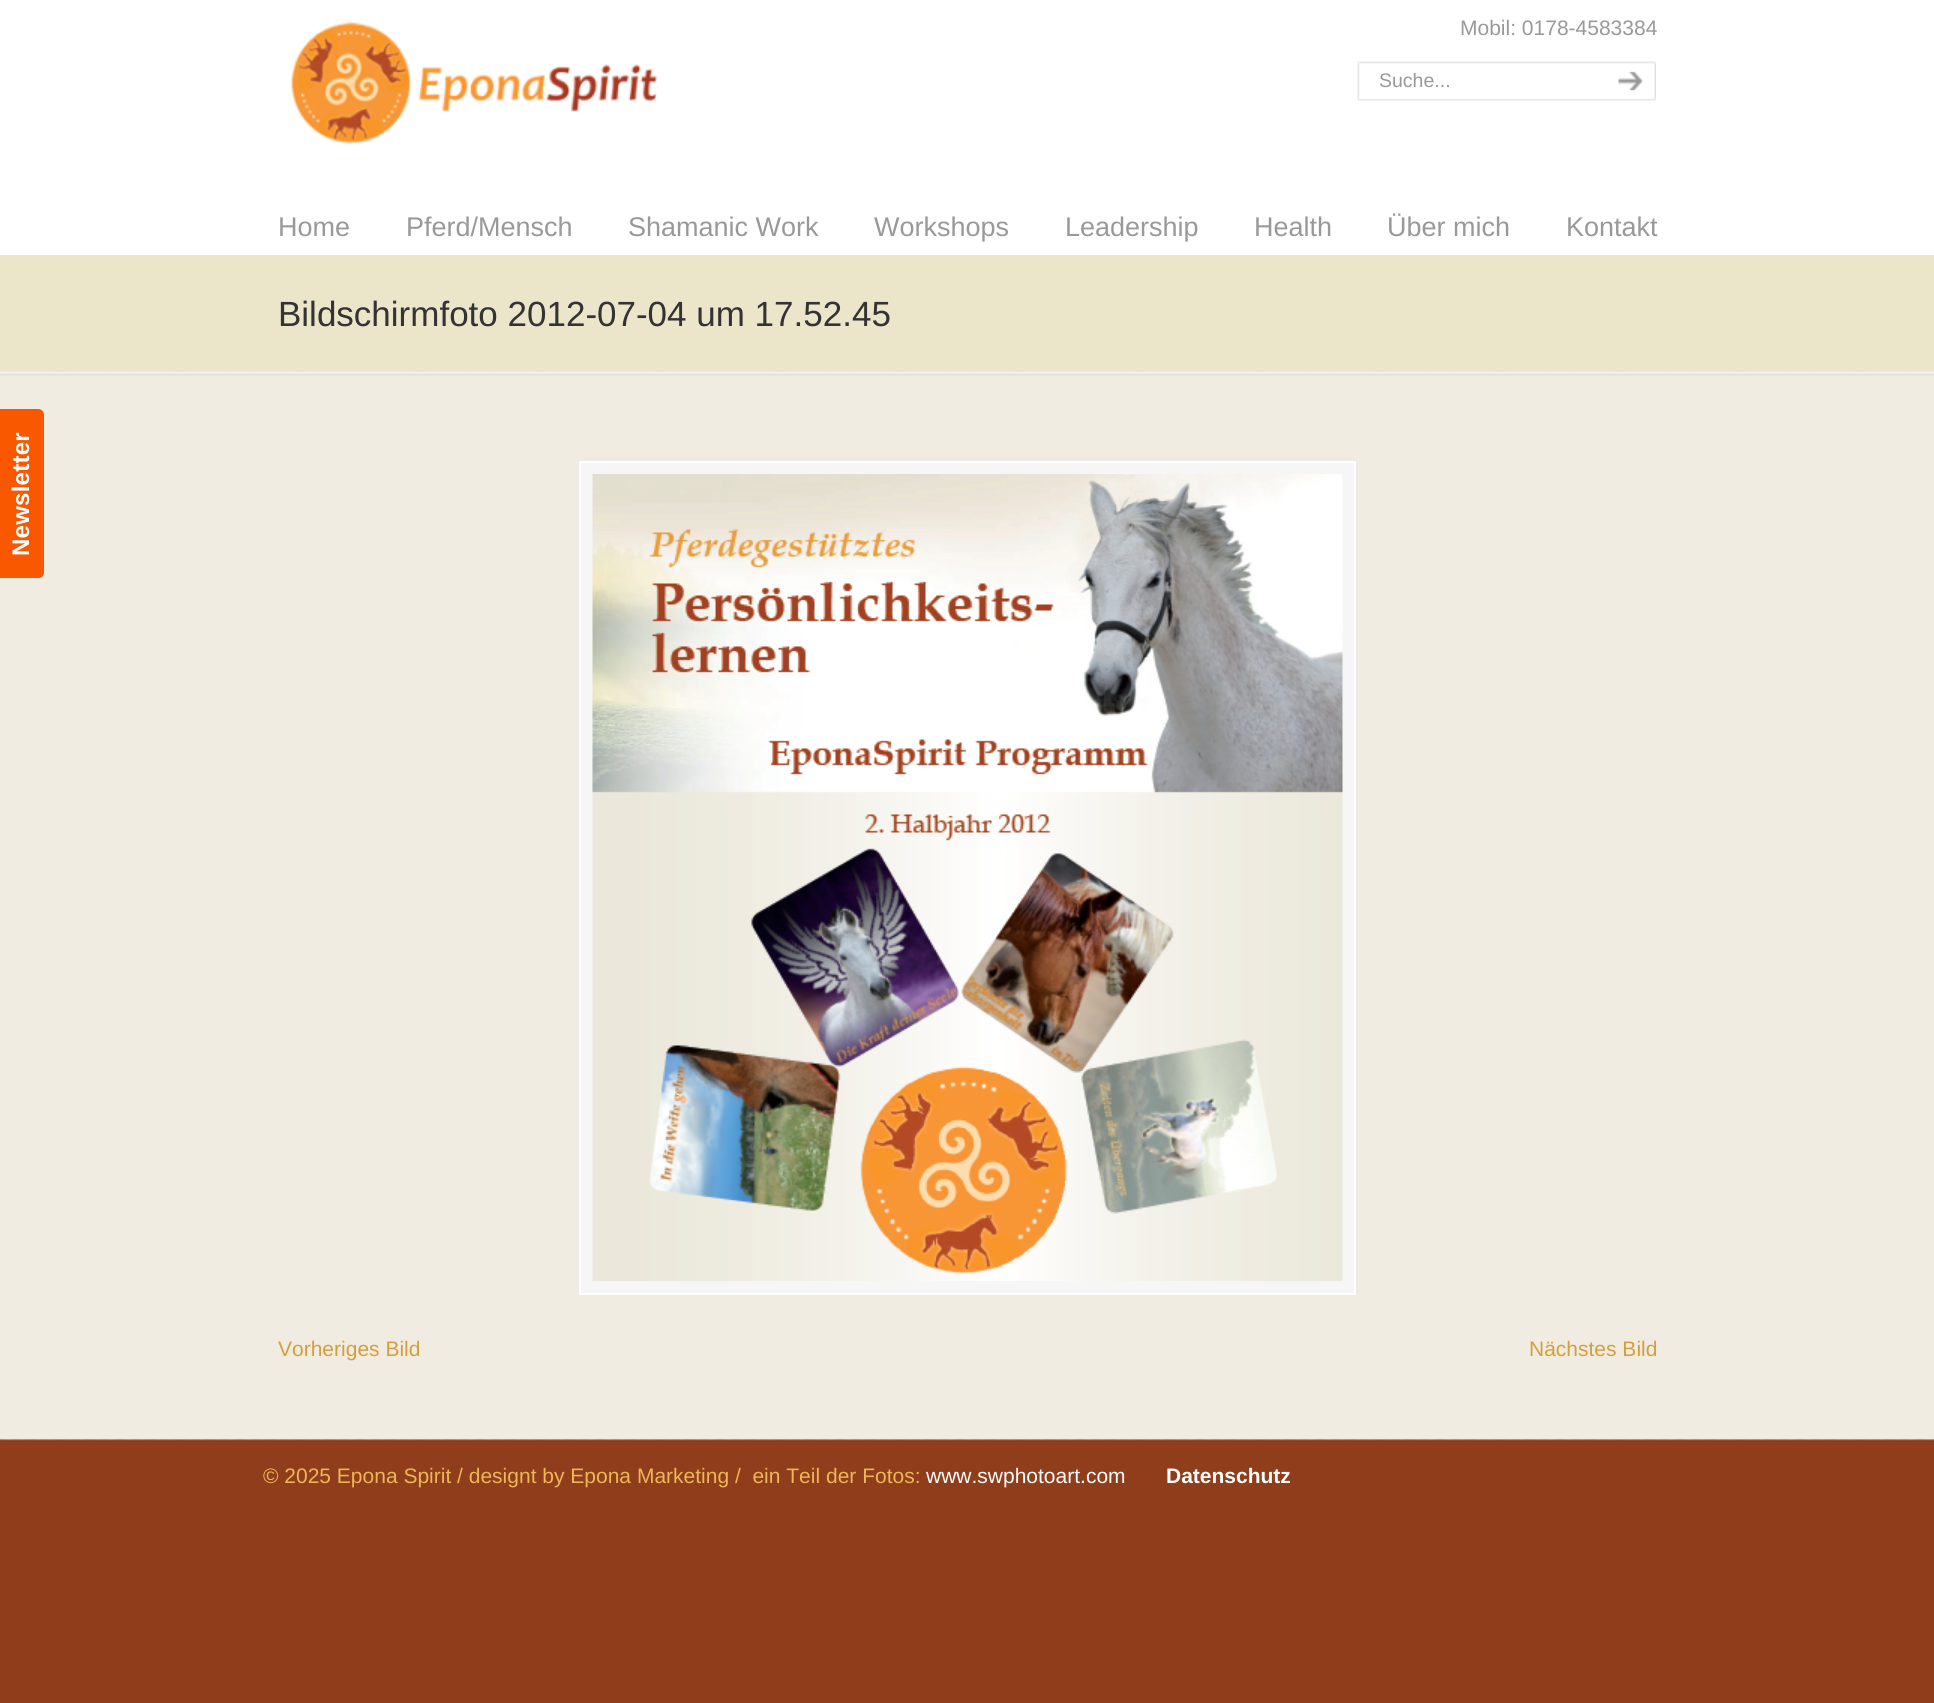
#include <cairo.h>
#include <math.h>
#include <stddef.h>

typedef struct { const char *family; double size; int italic, bold; unsigned color; } style_t;
static cairo_t *ctx;

static void ink(unsigned color) {
    cairo_set_source_rgb(ctx, (color >> 16) / 255.0, (color >> 8 & 255) / 255.0, (color & 255) / 255.0);
}

static void write(double x, double y, const char *s, const style_t *st) {
    cairo_select_font_face(ctx, st->family, st->italic ? CAIRO_FONT_SLANT_ITALIC : CAIRO_FONT_SLANT_NORMAL,
        st->bold ? CAIRO_FONT_WEIGHT_BOLD : CAIRO_FONT_WEIGHT_NORMAL);
    cairo_set_font_size(ctx, st->size);
    ink(st->color);
    cairo_move_to(ctx, x, y);
    cairo_show_text(ctx, s);
}

static void write_spaced(double x, double y, const char *s, double letter, double word) {
    cairo_move_to(ctx, x, y);
    while (*s) {
        char ch[5] = {0};
        int n = 0;
        do ch[n++] = *s++; while ((*s & 0xC0) == 0x80);
        cairo_show_text(ctx, ch);
        cairo_rel_move_to(ctx, letter + word * (*ch == ' '), 0);
    }
}

static void block(double x, double y, double w, double h, unsigned color) {
    ink(color);
    cairo_rectangle(ctx, x, y, w, h);
    cairo_fill(ctx);
}

static void paste(const char *path, double x, double y, double w, double h) {
    cairo_surface_t *image = cairo_image_surface_create_from_png(path);
    cairo_save(ctx);
    cairo_set_source_surface(ctx, image, x, y);
    cairo_rectangle(ctx, x, y, w, h);
    cairo_fill(ctx);
    cairo_restore(ctx);
    cairo_surface_destroy(image);
}

static const style_t s1 = {"Liberation Sans", 19.5, 0, 0, 0x999999};
static const style_t s2 = {"Liberation Sans", 21, 0, 0, 0x999999};
static const style_t s3 = {"Liberation Sans", 27, 0, 0, 0x999999};
static const style_t s4 = {"Liberation Sans", 35, 0, 0, 0x333333};
static const style_t s5 = {"Liberation Sans", 21, 0, 0, 0xd59e3c};
static const style_t s6 = {"Liberation Sans", 21, 0, 0, 0xedb657};
static const style_t s7 = {"Liberation Sans", 21, 0, 0, 0xffffff};
static const style_t s8 = {"Liberation Sans", 21, 0, 1, 0xffffff};

int main(void) {
    cairo_surface_t *surface = cairo_image_surface_create(CAIRO_FORMAT_RGB24, 1934, 1703);
    ctx = cairo_create(surface);
    cairo_font_options_t *options = cairo_font_options_create();
    cairo_font_options_set_hint_metrics(options, CAIRO_HINT_METRICS_OFF);
    cairo_font_options_set_hint_style(options, CAIRO_HINT_STYLE_NONE);
    cairo_set_font_options(ctx, options);
    cairo_set_miter_limit(ctx, 4);
    ink(0x8f3d1a);
    cairo_paint(ctx);
    block(0, 372, 1934, 1067, 0xf0ece2);
    ink(0xf95700);
    cairo_new_path(ctx);
    cairo_move_to(ctx, -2, 578);
    cairo_line_to(ctx, -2, 409);
    cairo_line_to(ctx, 38, 409);
    cairo_curve_to(ctx, 42, 409, 44, 412, 44, 415);
    cairo_line_to(ctx, 44, 572);
    cairo_curve_to(ctx, 44, 576, 42, 578, 38, 578);
    cairo_close_path(ctx);
    cairo_fill(ctx);
    cairo_select_font_face(ctx, "Liberation Sans", CAIRO_FONT_SLANT_NORMAL, CAIRO_FONT_WEIGHT_BOLD);
    cairo_set_font_size(ctx, 24);
    ink(0xffffff);
    cairo_save(ctx);
    cairo_translate(ctx, 29, 556);
    cairo_rotate(ctx, -90 * M_PI / 180);
    write_spaced(0, 0, "Newsletter", 0.25, 0);
    cairo_restore(ctx);
    block(0, 0, 1934, 255, 0xffffff);
    paste("pic1.png", 290, 21, 368, 124);
    paste("pic2.png", 1357, 61, 239, 40);
    write(1379, 87, "Suche...", &s1);
    paste("pic3.png", 1596, 61, 60, 40);
    write(1460, 35, "Mobil: 0178-4583384", &s2);
    write(278, 236, "Home", &s3);
    write(406, 236, "Pferd/Mensch", &s3);
    write(628, 236, "Shamanic Work", &s3);
    write(874, 236, "Workshops", &s3);
    write(1065, 236, "Leadership", &s3);
    write(1254, 236, "Health", &s3);
    write(1387, 236, "Über mich", &s3);
    write(1566, 236, "Kontakt", &s3);
    block(0, 255, 1934, 117, 0xebe5ca);
    write(278, 326, "Bildschirmfoto 2012-07-04 um 17.52.45", &s4);
    paste("pic4.png", 0, 372, 1934, 4);
    block(581, 463, 773, 830, 0xf6f6f6);
    cairo_rectangle(ctx, 579, 460, 778, 835);
    ink(0xeaeaea);
    cairo_stroke(ctx);
    cairo_rectangle(ctx, 580, 462, 775, 832);
    ink(0xffffff);
    cairo_stroke(ctx);
    paste("pic5.png", 592, 474, 751, 807);
    write(278, 1356, "Vorheriges Bild", &s5);
    write(1529, 1356, "Nächstes Bild", &s5);
    paste("pic6.png", 0, 1439, 1934, 3);
    write(263, 1483, "© 2025 Epona Spirit / designt by Epona Marketing /  ein Teil der Fotos:", &s6);
    write(926, 1483, "www.swphotoart.com", &s7);
    write(1166, 1483, "Datenschutz", &s8);
    cairo_surface_write_to_png(surface, "screenshot.png");
    cairo_font_options_destroy(options);
    cairo_destroy(ctx);
    cairo_surface_destroy(surface);
    return 0;
}
